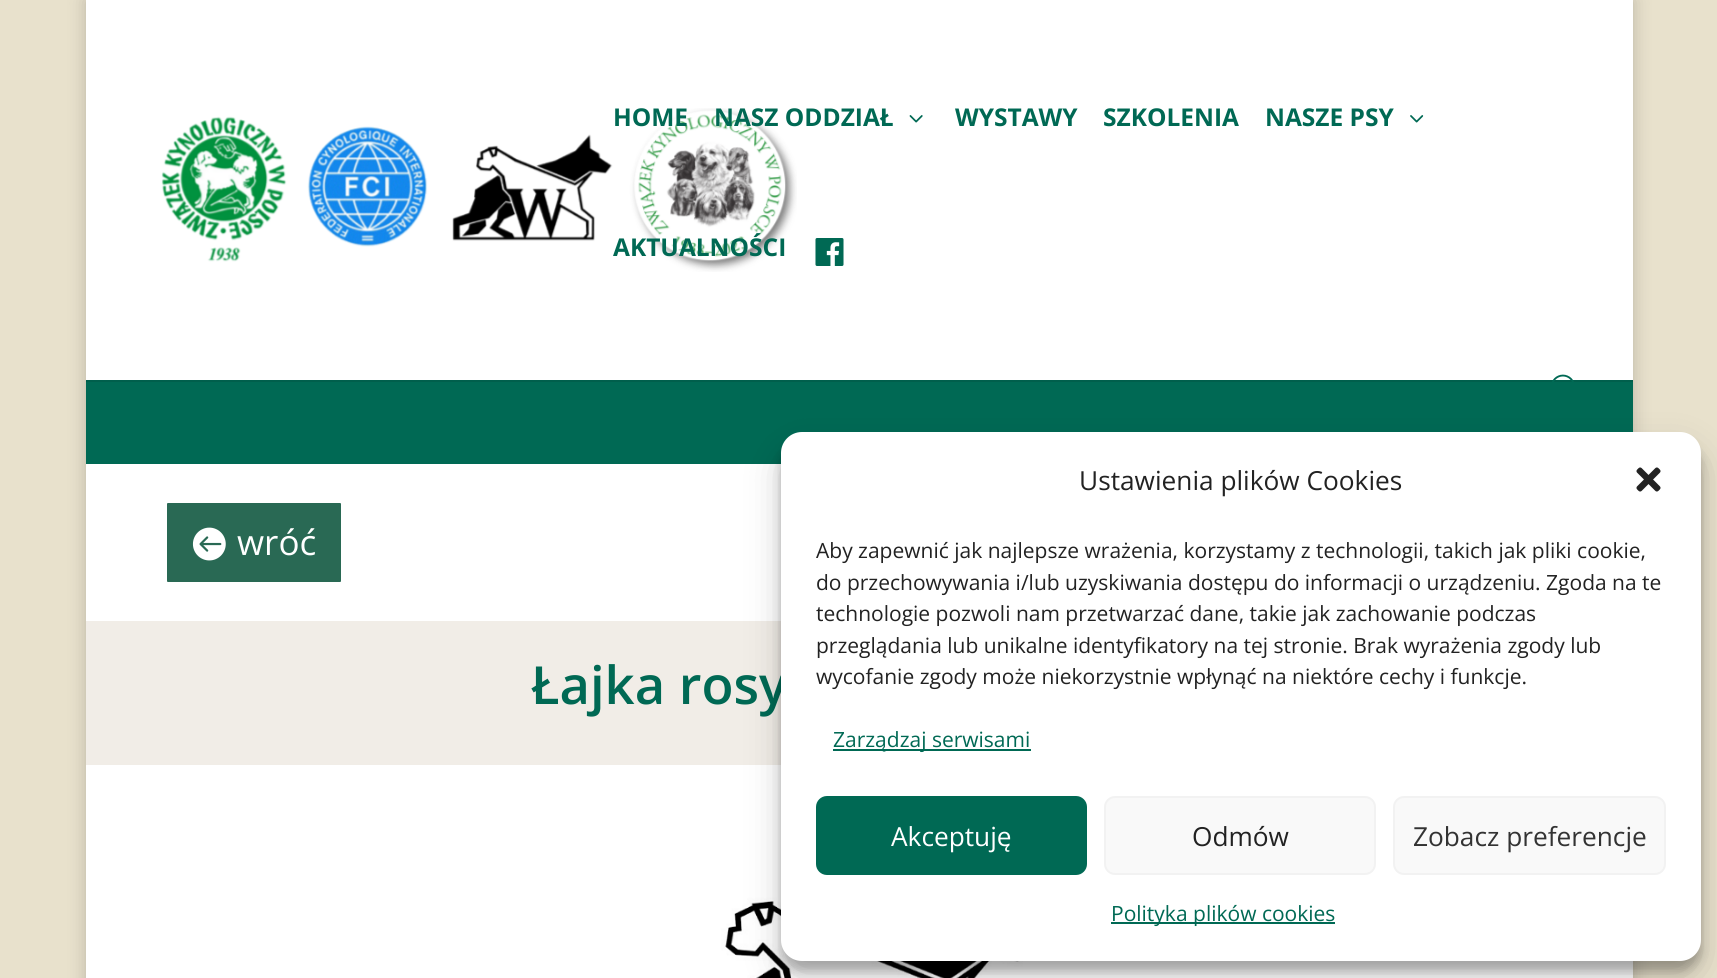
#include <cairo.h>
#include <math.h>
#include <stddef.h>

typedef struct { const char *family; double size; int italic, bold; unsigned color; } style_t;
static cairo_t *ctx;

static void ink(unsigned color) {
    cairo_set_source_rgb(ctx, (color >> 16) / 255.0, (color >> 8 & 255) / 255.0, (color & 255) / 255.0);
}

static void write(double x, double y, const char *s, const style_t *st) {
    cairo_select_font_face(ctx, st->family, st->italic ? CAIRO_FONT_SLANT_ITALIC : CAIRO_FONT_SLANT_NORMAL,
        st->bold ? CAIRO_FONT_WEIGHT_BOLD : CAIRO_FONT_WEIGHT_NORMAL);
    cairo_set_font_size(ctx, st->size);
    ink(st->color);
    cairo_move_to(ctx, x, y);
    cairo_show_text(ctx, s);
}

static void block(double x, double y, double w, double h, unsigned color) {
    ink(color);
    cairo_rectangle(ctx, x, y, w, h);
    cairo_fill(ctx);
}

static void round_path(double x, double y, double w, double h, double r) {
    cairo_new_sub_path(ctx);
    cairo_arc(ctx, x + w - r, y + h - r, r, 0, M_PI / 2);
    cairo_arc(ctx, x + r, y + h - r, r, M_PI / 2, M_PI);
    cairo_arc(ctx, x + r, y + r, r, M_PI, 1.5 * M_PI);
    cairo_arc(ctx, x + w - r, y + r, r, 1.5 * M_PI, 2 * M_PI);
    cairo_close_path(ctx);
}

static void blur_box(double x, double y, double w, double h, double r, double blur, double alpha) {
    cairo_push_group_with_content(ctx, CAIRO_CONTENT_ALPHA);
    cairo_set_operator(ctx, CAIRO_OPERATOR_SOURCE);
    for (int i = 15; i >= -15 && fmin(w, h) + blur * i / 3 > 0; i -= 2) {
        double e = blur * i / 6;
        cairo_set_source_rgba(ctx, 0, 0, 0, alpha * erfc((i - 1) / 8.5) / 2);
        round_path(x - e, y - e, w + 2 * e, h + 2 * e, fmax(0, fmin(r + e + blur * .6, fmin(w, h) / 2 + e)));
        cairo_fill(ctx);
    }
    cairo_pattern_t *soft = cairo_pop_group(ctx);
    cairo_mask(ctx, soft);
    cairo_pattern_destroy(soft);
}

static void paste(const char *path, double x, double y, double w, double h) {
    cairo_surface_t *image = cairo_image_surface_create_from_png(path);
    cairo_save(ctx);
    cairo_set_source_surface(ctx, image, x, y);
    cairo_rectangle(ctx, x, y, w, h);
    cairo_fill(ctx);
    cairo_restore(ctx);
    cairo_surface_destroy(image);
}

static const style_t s1 = {"Open Sans", 24.5, 0, 1, 0x006954};
static const style_t s2 = {"Open Sans", 35, 0, 0, 0xffffff};
static const style_t s3 = {"Open Sans SemiBold", 52.5, 0, 0, 0x006954};
static const style_t s4 = {"Open Sans", 26.25, 0, 0, 0x222222};
static const style_t s5 = {"Open Sans", 21, 0, 0, 0x222222};
static const style_t s6 = {"Open Sans", 21, 0, 0, 0x006954};
static const style_t s7 = {"Open Sans", 26.25, 0, 0, 0xffffff};
static const style_t s8 = {"Open Sans", 26.25, 0, 0, 0x333333};

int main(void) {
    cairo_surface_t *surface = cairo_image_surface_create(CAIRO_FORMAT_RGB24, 1717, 978);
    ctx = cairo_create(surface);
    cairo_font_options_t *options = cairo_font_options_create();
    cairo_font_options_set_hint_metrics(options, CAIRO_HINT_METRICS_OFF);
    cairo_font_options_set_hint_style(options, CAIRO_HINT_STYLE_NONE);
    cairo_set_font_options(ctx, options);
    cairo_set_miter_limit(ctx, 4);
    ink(0xe8e1cc);
    cairo_paint(ctx);
    ink(0x000000);
    blur_box(86, 0, 1547, 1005, 0, 9, 0.2);
    ink(0x005f4c);
    cairo_new_path(ctx);
    cairo_move_to(ctx, 86, 380);
    cairo_line_to(ctx, 86, 382);
    cairo_line_to(ctx, 1633, 382);
    cairo_line_to(ctx, 1633, 2);
    cairo_line_to(ctx, 1633, 380);
    cairo_close_path(ctx);
    cairo_fill(ctx);
    block(86, 0, 1547, 380, 0xffffff);
    paste("pic1.png", 161, 108, 636, 164);
    write(613, 126, "HOME", &s1);
    write(714, 126, "NASZ ODDZIAŁ", &s1);
    paste("pic2.png", 909, 115, 14, 8);
    write(955, 126, "WYSTAWY", &s1);
    write(1103, 126, "SZKOLENIA", &s1);
    write(1265, 126, "NASZE PSY", &s1);
    paste("pic3.png", 1410, 115, 14, 8);
    write(613, 256, "AKTUALNOŚCI", &s1);
    paste("pic4.png", 815, 238, 29, 28);
    paste("pic5.png", 1552, 374, 22, 8);
    block(86, 382, 1547, 82, 0x006954);
    block(86, 464, 695, 157, 0xffffff);
    ink(0x296954);
    round_path(165, 501, 178, 83, 3);
    cairo_fill_preserve(ctx);
    ink(0xffffff);
    cairo_set_line_width(ctx, 4);
    cairo_stroke(ctx);
    paste("pic6.png", 192, 527, 34, 34);
    write(237, 555, "wróć", &s2);
    block(86, 621, 695, 144, 0xf1ede7);
    write(531, 704, "Łajka rosy", &s3);
    block(86, 765, 1547, 213, 0xffffff);
    paste("pic7.png", 641, 835, 437, 143);
    ink(0x000000);
    blur_box(781, 443, 920, 528, 21, 5, 0.23);
    blur_box(781, 450, 920, 528, 21, 17.5, 0.19);
    ink(0xffffff);
    round_path(781, 432, 920, 529, 21);
    cairo_fill(ctx);
    write(1079, 490, "Ustawienia plików Cookies", &s4);
    paste("pic8.png", 1636, 467, 25, 25);
    write(816, 558, "Aby zapewnić jak najlepsze wrażenia, korzystamy z technologii, takich jak pliki cookie,", &s5);
    write(816, 590, "do przechowywania i/lub uzyskiwania dostępu do informacji o urządzeniu. Zgoda na te", &s5);
    write(816, 621, "technologie pozwoli nam przetwarzać dane, takie jak zachowanie podczas", &s5);
    write(816, 653, "przeglądania lub unikalne identyfikatory na tej stronie. Brak wyrażenia zgody lub", &s5);
    write(816, 684, "wycofanie zgody może niekorzystnie wpłynąć na niektóre cechy i funkcje.", &s5);
    block(833, 749, 198, 2, 0x006954);
    write(833, 747, "Zarządzaj serwisami", &s6);
    round_path(817, 797, 269, 77, 10);
    cairo_fill_preserve(ctx);
    cairo_set_line_width(ctx, 2);
    cairo_stroke(ctx);
    write(891, 846, "Akceptuję", &s7);
    ink(0xf9f9f9);
    round_path(1105, 797, 270, 77, 10);
    cairo_fill_preserve(ctx);
    ink(0xf2f2f2);
    cairo_stroke(ctx);
    write(1192, 846, "Odmów", &s4);
    ink(0xf9f9f9);
    round_path(1394, 797, 271, 77, 10);
    cairo_fill_preserve(ctx);
    ink(0xf2f2f2);
    cairo_stroke(ctx);
    write(1413, 846, "Zobacz preferencje", &s8);
    block(1111, 922, 224, 2, 0x006954);
    write(1111, 921, "Polityka plików cookies", &s6);
    cairo_surface_write_to_png(surface, "screenshot.png");
    cairo_font_options_destroy(options);
    cairo_destroy(ctx);
    cairo_surface_destroy(surface);
    return 0;
}
